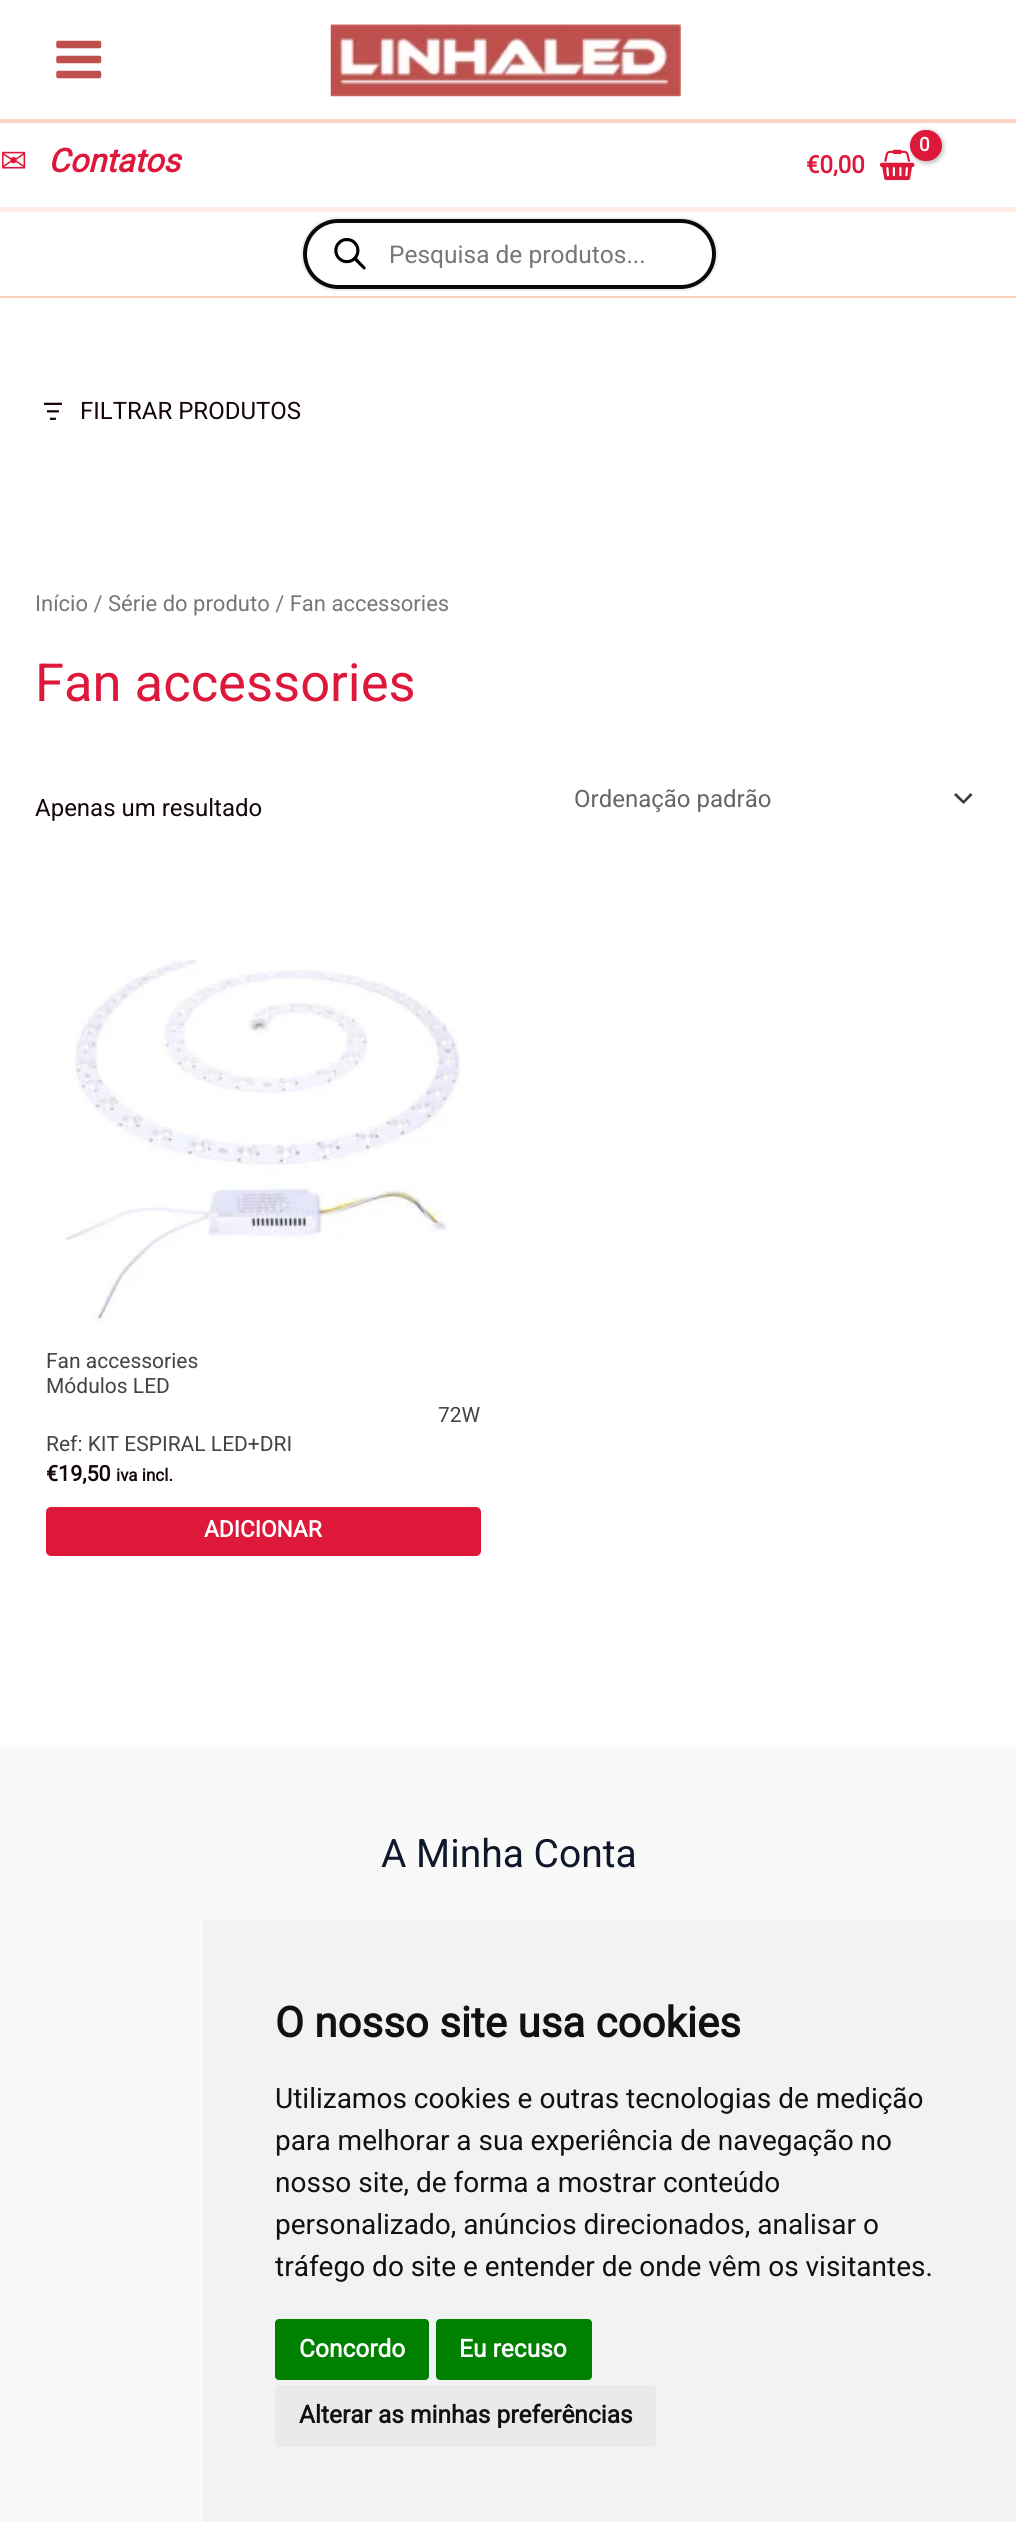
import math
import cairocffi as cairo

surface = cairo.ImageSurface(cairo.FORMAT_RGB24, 1016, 2522)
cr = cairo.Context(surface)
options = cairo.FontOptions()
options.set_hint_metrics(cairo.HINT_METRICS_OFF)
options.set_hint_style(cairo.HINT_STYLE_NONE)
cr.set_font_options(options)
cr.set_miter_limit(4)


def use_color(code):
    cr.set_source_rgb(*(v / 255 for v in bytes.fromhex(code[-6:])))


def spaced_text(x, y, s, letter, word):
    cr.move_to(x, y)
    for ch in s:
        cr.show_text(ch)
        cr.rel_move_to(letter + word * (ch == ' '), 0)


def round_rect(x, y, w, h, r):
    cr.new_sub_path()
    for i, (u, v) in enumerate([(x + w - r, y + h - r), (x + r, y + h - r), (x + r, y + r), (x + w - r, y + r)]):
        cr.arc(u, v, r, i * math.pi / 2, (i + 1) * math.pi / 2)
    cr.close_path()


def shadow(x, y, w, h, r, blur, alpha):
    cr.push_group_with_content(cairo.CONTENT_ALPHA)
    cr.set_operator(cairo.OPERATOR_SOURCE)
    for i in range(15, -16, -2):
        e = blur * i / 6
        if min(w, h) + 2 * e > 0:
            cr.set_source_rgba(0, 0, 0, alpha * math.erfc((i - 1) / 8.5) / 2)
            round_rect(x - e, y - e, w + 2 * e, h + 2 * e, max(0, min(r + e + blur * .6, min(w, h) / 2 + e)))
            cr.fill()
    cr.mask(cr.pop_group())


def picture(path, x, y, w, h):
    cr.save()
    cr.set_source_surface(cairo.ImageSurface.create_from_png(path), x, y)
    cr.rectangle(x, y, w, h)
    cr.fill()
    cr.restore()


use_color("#ffffff")
cr.paint()
use_color("#ffd1bf")
cr.rectangle(0, 119, 1016, 4)
cr.fill()
picture("img1.png", 56, 40, 46, 39)
picture("img2.png", 330, 24, 351, 73)
use_color("#ffede6")
cr.rectangle(0, 207, 1016, 5)
cr.fill()
cr.select_font_face("DejaVu Sans")
cr.set_font_size(32.5)
use_color("#dd183b")
cr.move_to(0, 172)
cr.show_text("✉")
cr.select_font_face("Roboto", cairo.FONT_SLANT_ITALIC, cairo.FONT_WEIGHT_BOLD)
cr.move_to(48, 172)
cr.show_text("Contatos")
picture("img3.png", 879, 149, 36, 32)
use_color("#000000")
shadow(912, 131, 31, 32, 15.5, 2.5, 0.3)
use_color("#dd183b")
round_rect(910, 130, 32, 31, 15.5)
cr.fill()
cr.select_font_face("Roboto", cairo.FONT_SLANT_NORMAL, cairo.FONT_WEIGHT_BOLD)
cr.set_font_size(19)
use_color("#ffffff")
spaced_text(919, 151, "0", -1, 0)
cr.set_font_size(24)
use_color("#dd183b")
cr.move_to(806, 173)
cr.show_text("€0,00")
use_color("#ffd1bf")
cr.rectangle(0, 296, 1016, 2)
cr.fill()
round_rect(302, 218, 415, 72, 36)
use_color("#eeeeee")
cr.stroke()
use_color("#ffffff")
round_rect(305, 221, 409, 66, 33)
cr.fill_preserve()
use_color("#0a0a0a")
cr.set_line_width(4)
cr.stroke()
picture("img4.png", 334, 238, 32, 32)
cr.select_font_face("Roboto")
cr.set_font_size(24.5)
use_color("#777777")
cr.move_to(389, 263)
cr.show_text("Pesquisa de produtos...")
picture("img5.png", 43, 402, 19, 18)
cr.set_font_size(24)
use_color("#140609")
cr.move_to(80, 419)
cr.show_text("FILTRAR PRODUTOS")
cr.set_font_size(22)
use_color("#777777")
cr.move_to(35, 611)
cr.show_text("Início / Série do produto / Fan accessories")
cr.set_font_size(52.5)
use_color("#dd183b")
cr.move_to(35, 701)
cr.show_text("Fan accessories")
cr.set_font_size(24)
use_color("#140609")
cr.move_to(35, 816)
cr.show_text("Apenas um resultado")
use_color("#3a3a3a")
cr.new_path()
cr.move_to(954, 795)
cr.line_to(963.5, 804)
cr.line_to(972.5, 795)
cr.line_to(970.5, 793)
cr.line_to(963.5, 800.5)
cr.line_to(956, 793)
cr.close_path()
cr.fill()
use_color("#666666")
cr.move_to(574, 807)
cr.show_text("Ordenação padrão")
picture("img6.png", 65, 959, 396, 366)
cr.set_font_size(21)
use_color("#444444")
cr.move_to(46, 1368)
cr.show_text("Fan accessories")
cr.move_to(46, 1393)
cr.show_text("Módulos LED")
cr.move_to(438, 1422)
cr.show_text("72W")
cr.move_to(46, 1451)
cr.show_text("Ref: KIT ESPIRAL LED+DRI")
cr.select_font_face("Roboto", cairo.FONT_SLANT_NORMAL, cairo.FONT_WEIGHT_BOLD)
cr.set_font_size(21.5)
use_color("#140609")
cr.move_to(46, 1481)
cr.show_text("€19,50")
cr.set_font_size(17)
cr.move_to(116, 1481)
cr.show_text("iva incl.")
use_color("#dd183b")
round_rect(46, 1507, 435, 49, 5)
cr.fill()
cr.set_font_size(22.75)
use_color("#ffffff")
cr.move_to(204, 1537)
cr.show_text("ADICIONAR")
use_color("#f9f9f9")
cr.rectangle(0, 1747, 1016, 775)
cr.fill()
cr.select_font_face("Roboto")
cr.set_font_size(39)
use_color("#0f172a")
cr.move_to(381, 1867)
cr.show_text("A Minha Conta")
use_color("#f2f2f2")
cr.rectangle(203, 1920, 813, 602)
cr.fill()
cr.select_font_face("Roboto", cairo.FONT_SLANT_NORMAL, cairo.FONT_WEIGHT_BOLD)
cr.set_font_size(42)
use_color("#111111")
cr.move_to(275, 2037)
cr.show_text("O nosso site usa cookies")
cr.select_font_face("Roboto")
cr.set_font_size(28)
cr.move_to(275, 2108)
cr.show_text("Utilizamos cookies e outras tecnologias de medição")
cr.move_to(275, 2150)
cr.show_text("para melhorar a sua experiência de navegação no")
cr.move_to(275, 2192)
cr.show_text("nosso site, de forma a mostrar conteúdo")
cr.move_to(275, 2234)
cr.show_text("personalizado, anúncios direcionados, analisar o")
cr.move_to(275, 2276)
cr.show_text("tráfego do site e entender de onde vêm os visitantes.")
use_color("#008000")
round_rect(275, 2319, 154, 61, 4)
cr.fill()
cr.select_font_face("Roboto", cairo.FONT_SLANT_NORMAL, cairo.FONT_WEIGHT_BOLD)
cr.set_font_size(24.5)
use_color("#ffffff")
cr.move_to(299, 2357)
cr.show_text("Concordo")
use_color("#008000")
round_rect(436, 2319, 156, 61, 4)
cr.fill()
use_color("#ffffff")
cr.move_to(459, 2357)
cr.show_text("Eu recuso")
use_color("#eaeaea")
round_rect(275, 2385, 381, 62, 4)
cr.fill()
use_color("#111111")
cr.move_to(299, 2423)
cr.show_text("Alterar as minhas preferências")
surface.write_to_png("result.png")
